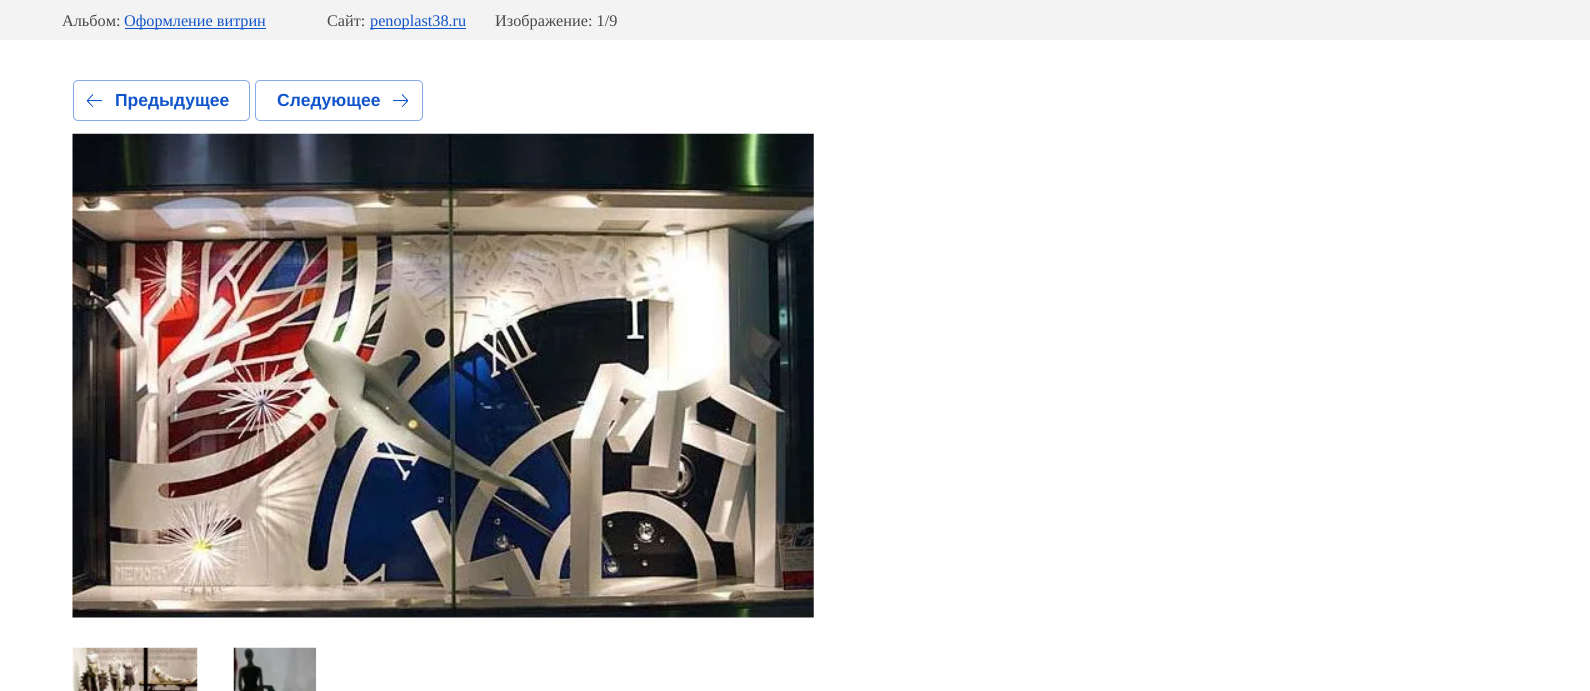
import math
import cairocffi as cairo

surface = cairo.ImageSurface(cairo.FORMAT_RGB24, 1590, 691)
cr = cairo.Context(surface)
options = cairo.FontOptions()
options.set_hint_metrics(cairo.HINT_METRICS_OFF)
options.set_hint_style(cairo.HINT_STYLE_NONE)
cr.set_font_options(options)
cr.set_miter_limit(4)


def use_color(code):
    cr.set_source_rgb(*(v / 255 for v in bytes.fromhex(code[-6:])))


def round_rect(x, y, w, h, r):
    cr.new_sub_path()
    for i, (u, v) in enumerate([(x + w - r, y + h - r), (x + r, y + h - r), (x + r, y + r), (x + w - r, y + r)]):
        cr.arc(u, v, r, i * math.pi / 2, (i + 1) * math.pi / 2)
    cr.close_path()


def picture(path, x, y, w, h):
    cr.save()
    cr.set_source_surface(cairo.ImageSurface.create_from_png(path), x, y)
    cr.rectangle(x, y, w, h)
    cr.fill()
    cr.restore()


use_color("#ffffff")
cr.paint()
use_color("#f3f3f3")
cr.rectangle(0, 0, 1590, 40)
cr.fill()
cr.select_font_face("Liberation Serif")
cr.set_font_size(16.25)
use_color("#484848")
cr.move_to(62, 26)
cr.show_text("Альбом:")
use_color("#1155cc")
cr.rectangle(125, 28, 141, 1)
cr.fill()
cr.move_to(124, 26)
cr.show_text("Оформление витрин")
use_color("#484848")
cr.move_to(327, 26)
cr.show_text("Сайт:")
use_color("#1155cc")
cr.rectangle(370, 28, 96, 1)
cr.fill()
cr.move_to(370, 26)
cr.show_text("penoplast38.ru")
use_color("#484848")
cr.move_to(495, 26)
cr.show_text("Изображение: 1/9")
round_rect(73.5, 80.5, 176, 40, 4.5)
use_color("#88aae6")
cr.set_line_width(1)
cr.stroke()
picture("img1.png", 86, 94, 17, 13)
cr.select_font_face("Liberation Sans", cairo.FONT_SLANT_NORMAL, cairo.FONT_WEIGHT_BOLD)
cr.set_font_size(17.5)
use_color("#1155cc")
cr.move_to(115, 106)
cr.show_text("Предыдущее")
round_rect(255.5, 80.5, 167, 40, 4.5)
use_color("#88aae6")
cr.stroke()
use_color("#1155cc")
cr.move_to(277, 106)
cr.show_text("Следующее")
picture("img2.png", 393, 94, 16, 13)
picture("img3.png", 72, 133, 742, 485)
picture("img4.png", 72, 647, 126, 44)
picture("img5.png", 233, 647, 84, 44)
surface.write_to_png("result.png")
